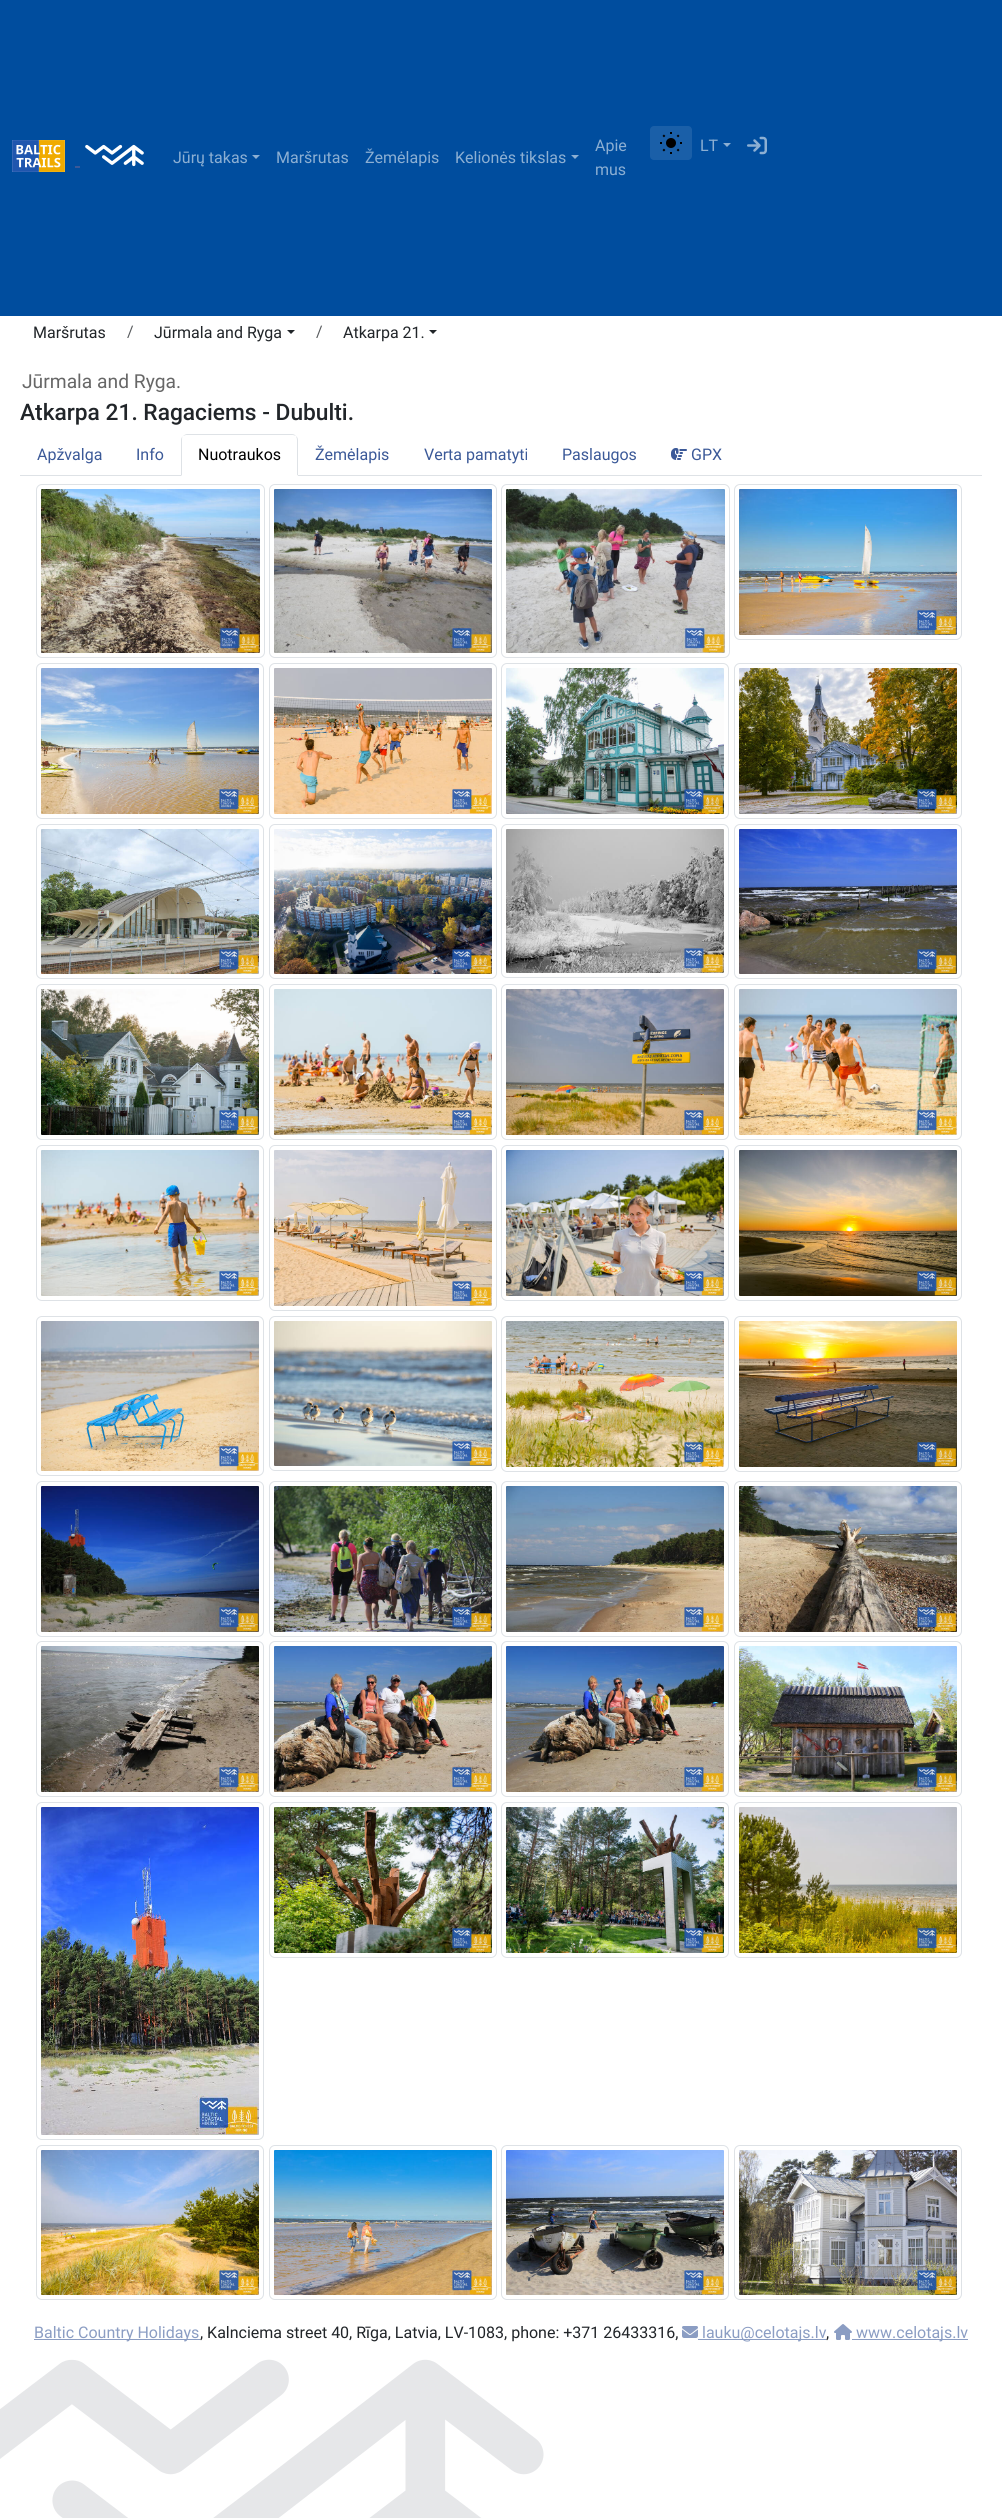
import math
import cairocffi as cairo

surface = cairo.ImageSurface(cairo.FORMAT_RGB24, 1002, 2518)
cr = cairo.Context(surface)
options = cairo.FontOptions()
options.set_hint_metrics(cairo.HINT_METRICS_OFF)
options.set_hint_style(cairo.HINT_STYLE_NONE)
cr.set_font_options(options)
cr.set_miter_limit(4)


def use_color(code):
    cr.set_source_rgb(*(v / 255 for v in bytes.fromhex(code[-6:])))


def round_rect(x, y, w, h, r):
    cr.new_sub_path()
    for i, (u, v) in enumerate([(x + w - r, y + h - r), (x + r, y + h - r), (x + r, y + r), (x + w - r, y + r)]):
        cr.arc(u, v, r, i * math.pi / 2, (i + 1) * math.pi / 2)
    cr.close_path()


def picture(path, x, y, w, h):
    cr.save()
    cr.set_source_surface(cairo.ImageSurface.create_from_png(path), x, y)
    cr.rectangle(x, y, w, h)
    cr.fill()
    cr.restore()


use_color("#ffffff")
cr.paint()
picture("img1.png", 0, 2359, 544, 159)
use_color("#004d9e")
cr.rectangle(0, 0, 1002, 316)
cr.fill()
picture("img2.png", 12, 140, 53, 32)
use_color("#3b5998")
cr.rectangle(75, 166, 5, 2)
cr.fill()
picture("img3.png", 85, 144, 59, 23)
cr.select_font_face("Roboto")
cr.set_font_size(16)
use_color("#8cafd3")
cr.move_to(173, 163)
cr.show_text("Jūrų takas")
cr.new_path()
cr.move_to(252, 155)
cr.line_to(260, 155)
cr.line_to(256, 159)
cr.close_path()
cr.fill()
cr.move_to(276, 163)
cr.show_text("Maršrutas")
cr.move_to(365, 163)
cr.show_text("Žemėlapis")
cr.move_to(455, 163)
cr.show_text("Kelionės tikslas")
cr.new_path()
cr.move_to(571, 155)
cr.line_to(579, 155)
cr.line_to(575, 159)
cr.close_path()
cr.fill()
cr.move_to(595, 151)
cr.show_text("Apie")
cr.move_to(595, 175)
cr.show_text("mus")
use_color("#1a5fa8")
round_rect(650, 126, 42, 34, 4)
cr.fill()
picture("img4.png", 660, 132, 22, 22)
use_color("#8cafd3")
cr.move_to(700, 151)
cr.show_text("LT")
cr.new_path()
cr.move_to(723, 143)
cr.line_to(731, 143)
cr.line_to(727, 147)
cr.close_path()
cr.fill()
picture("img5.png", 747, 136, 20, 19)
use_color("#212529")
cr.move_to(33, 338)
cr.show_text("Maršrutas")
use_color("#595c5f")
cr.move_to(127, 337)
cr.show_text("/")
use_color("#212529")
cr.move_to(154, 338)
cr.show_text("Jūrmala and Ryga")
cr.new_path()
cr.move_to(287, 330)
cr.line_to(295, 330)
cr.line_to(291, 334)
cr.close_path()
cr.fill()
use_color("#595c5f")
cr.move_to(316, 337)
cr.show_text("/")
use_color("#212529")
cr.move_to(343, 338)
cr.show_text("Atkarpa 21.")
cr.new_path()
cr.move_to(429, 330)
cr.line_to(437, 330)
cr.line_to(433, 334)
cr.close_path()
cr.fill()
cr.set_font_size(19.25)
use_color("#676767")
cr.move_to(22, 388)
cr.show_text("Jūrmala and Ryga.")
cr.select_font_face("Roboto Medium")
cr.set_font_size(22.75)
use_color("#212529")
cr.move_to(20, 420)
cr.show_text("Atkarpa 21. Ragaciems - Dubulti.")
use_color("#dee2e6")
cr.rectangle(20, 475, 962, 1)
cr.fill()
cr.select_font_face("Roboto")
cr.set_font_size(16)
use_color("#3b5998")
cr.move_to(37, 460)
cr.show_text("Apžvalga")
cr.move_to(136, 460)
cr.show_text("Info")
use_color("#ffffff")
cr.new_path()
cr.move_to(187, 434)
cr.line_to(292, 434)
cr.curve_to(295.5, 434, 298, 436.5, 298, 440)
cr.line_to(298, 476)
cr.line_to(181, 476)
cr.line_to(181, 440)
cr.curve_to(181, 436.5, 183.5, 434, 187, 434)
cr.close_path()
cr.fill()
use_color("#dee2e6")
cr.new_path()
cr.move_to(187, 434)
cr.curve_to(186, 434, 184, 435, 183, 436)
cr.line_to(186, 435)
cr.line_to(293, 435)
cr.line_to(296, 436)
cr.curve_to(295, 435, 294, 434, 292, 434)
cr.close_path()
cr.fill()
cr.new_path()
cr.move_to(298, 476)
cr.line_to(298, 440)
cr.curve_to(298, 438, 297, 437, 296, 436)
cr.curve_to(296, 437, 297, 438, 297, 440)
cr.line_to(297, 475)
cr.close_path()
cr.fill()
use_color("#ffffff")
cr.new_path()
cr.move_to(298, 476)
cr.line_to(297, 475)
cr.line_to(182, 475)
cr.line_to(181, 476)
cr.close_path()
cr.fill()
use_color("#dee2e6")
cr.new_path()
cr.move_to(181, 476)
cr.line_to(182, 475)
cr.line_to(182, 440)
cr.curve_to(182, 438, 182, 437, 183, 436)
cr.curve_to(182, 437, 181, 438, 181, 440)
cr.close_path()
cr.fill()
use_color("#000000")
cr.move_to(198, 460)
cr.show_text("Nuotraukos")
use_color("#3b5998")
cr.move_to(315, 460)
cr.show_text("Žemėlapis")
cr.move_to(424, 460)
cr.show_text("Verta pamatyti")
cr.move_to(562, 460)
cr.show_text("Paslaugos")
picture("img6.png", 671, 448, 16, 12)
cr.move_to(691, 460)
cr.show_text("GPX")
round_rect(36.5, 484.5, 228, 173, 5.5)
use_color("#dee2e6")
cr.set_line_width(1)
cr.stroke()
picture("img7.png", 41, 489, 219, 164)
round_rect(269.5, 484.5, 227, 173, 5.5)
cr.stroke()
picture("img8.png", 274, 489, 218, 164)
round_rect(501.5, 484.5, 228, 173, 5.5)
cr.stroke()
picture("img9.png", 506, 489, 219, 164)
round_rect(734.5, 484.5, 227, 155, 5.5)
cr.stroke()
picture("img10.png", 739, 489, 218, 146)
round_rect(36.5, 663.5, 227, 155, 5.5)
cr.stroke()
picture("img11.png", 41, 668, 218, 146)
round_rect(269.5, 663.5, 227, 155, 5.5)
cr.stroke()
picture("img12.png", 274, 668, 218, 146)
round_rect(501.5, 663.5, 227, 155, 5.5)
cr.stroke()
picture("img13.png", 506, 668, 218, 146)
round_rect(734.5, 663.5, 227, 155, 5.5)
cr.stroke()
picture("img14.png", 739, 668, 218, 146)
round_rect(36.5, 824.5, 227, 154, 5.5)
cr.stroke()
picture("img15.png", 41, 829, 218, 145)
round_rect(269.5, 824.5, 227, 154, 5.5)
cr.stroke()
picture("img16.png", 274, 829, 218, 145)
round_rect(501.5, 824.5, 227, 153, 5.5)
cr.stroke()
picture("img17.png", 506, 829, 218, 144)
round_rect(734.5, 824.5, 227, 154, 5.5)
cr.stroke()
picture("img18.png", 739, 829, 218, 145)
round_rect(36.5, 984.5, 227, 155, 5.5)
cr.stroke()
picture("img19.png", 41, 989, 218, 146)
round_rect(269.5, 984.5, 227, 155, 5.5)
cr.stroke()
picture("img20.png", 274, 989, 218, 146)
round_rect(501.5, 984.5, 227, 155, 5.5)
cr.stroke()
picture("img21.png", 506, 989, 218, 146)
round_rect(734.5, 984.5, 227, 155, 5.5)
cr.stroke()
picture("img22.png", 739, 989, 218, 146)
round_rect(36.5, 1145.5, 227, 155, 5.5)
cr.stroke()
picture("img23.png", 41, 1150, 218, 146)
round_rect(269.5, 1145.5, 227, 165, 5.5)
cr.stroke()
picture("img24.png", 274, 1150, 218, 156)
round_rect(501.5, 1145.5, 227, 155, 5.5)
cr.stroke()
picture("img25.png", 506, 1150, 218, 146)
round_rect(734.5, 1145.5, 227, 155, 5.5)
cr.stroke()
picture("img26.png", 739, 1150, 218, 146)
round_rect(36.5, 1316.5, 227, 159, 5.5)
cr.stroke()
picture("img27.png", 41, 1321, 218, 150)
round_rect(269.5, 1316.5, 227, 154, 5.5)
cr.stroke()
picture("img28.png", 274, 1321, 218, 145)
round_rect(501.5, 1316.5, 227, 155, 5.5)
cr.stroke()
picture("img29.png", 506, 1321, 218, 146)
round_rect(734.5, 1316.5, 227, 155, 5.5)
cr.stroke()
picture("img30.png", 739, 1321, 218, 146)
round_rect(36.5, 1481.5, 227, 155, 5.5)
cr.stroke()
picture("img31.png", 41, 1486, 218, 146)
round_rect(269.5, 1481.5, 227, 155, 5.5)
cr.stroke()
picture("img32.png", 274, 1486, 218, 146)
round_rect(501.5, 1481.5, 227, 155, 5.5)
cr.stroke()
picture("img33.png", 506, 1486, 218, 146)
round_rect(734.5, 1481.5, 227, 155, 5.5)
cr.stroke()
picture("img34.png", 739, 1486, 218, 146)
round_rect(36.5, 1641.5, 227, 155, 5.5)
cr.stroke()
picture("img35.png", 41, 1646, 218, 146)
round_rect(269.5, 1641.5, 227, 155, 5.5)
cr.stroke()
picture("img36.png", 274, 1646, 218, 146)
round_rect(501.5, 1641.5, 227, 155, 5.5)
cr.stroke()
picture("img37.png", 506, 1646, 218, 146)
round_rect(734.5, 1641.5, 227, 155, 5.5)
cr.stroke()
picture("img38.png", 739, 1646, 218, 146)
round_rect(36.5, 1802.5, 227, 337, 5.5)
cr.stroke()
picture("img39.png", 41, 1807, 218, 328)
round_rect(269.5, 1802.5, 227, 155, 5.5)
cr.stroke()
picture("img40.png", 274, 1807, 218, 146)
round_rect(501.5, 1802.5, 227, 155, 5.5)
cr.stroke()
picture("img41.png", 506, 1807, 218, 146)
round_rect(734.5, 1802.5, 227, 155, 5.5)
cr.stroke()
picture("img42.png", 739, 1807, 218, 146)
round_rect(36.5, 2145.5, 227, 154, 5.5)
cr.stroke()
picture("img43.png", 41, 2150, 218, 145)
round_rect(269.5, 2145.5, 227, 154, 5.5)
cr.stroke()
picture("img44.png", 274, 2150, 218, 145)
round_rect(501.5, 2145.5, 227, 154, 5.5)
cr.stroke()
picture("img45.png", 506, 2150, 218, 145)
round_rect(734.5, 2145.5, 227, 154, 5.5)
cr.stroke()
picture("img46.png", 739, 2150, 218, 145)
use_color("#8b9dc3")
cr.rectangle(34, 2339, 166, 1)
cr.fill()
cr.move_to(34, 2338)
cr.show_text("Baltic Country Holidays")
use_color("#212529")
cr.move_to(200, 2338)
cr.show_text(", Kalnciema street 40, Rīga, Latvia, LV-1083, phone: +371 26433316,")
picture("img47.png", 682, 2326, 16, 12)
use_color("#8b9dc3")
cr.rectangle(698, 2339, 128, 1)
cr.fill()
cr.move_to(702, 2338)
cr.show_text("lauku@celotajs.lv")
use_color("#212529")
cr.move_to(826, 2338)
cr.show_text(",")
picture("img48.png", 834, 2324, 18, 16)
use_color("#8b9dc3")
cr.rectangle(852, 2339, 116, 1)
cr.fill()
cr.move_to(856, 2338)
cr.show_text("www.celotajs.lv")
surface.write_to_png("result.png")
